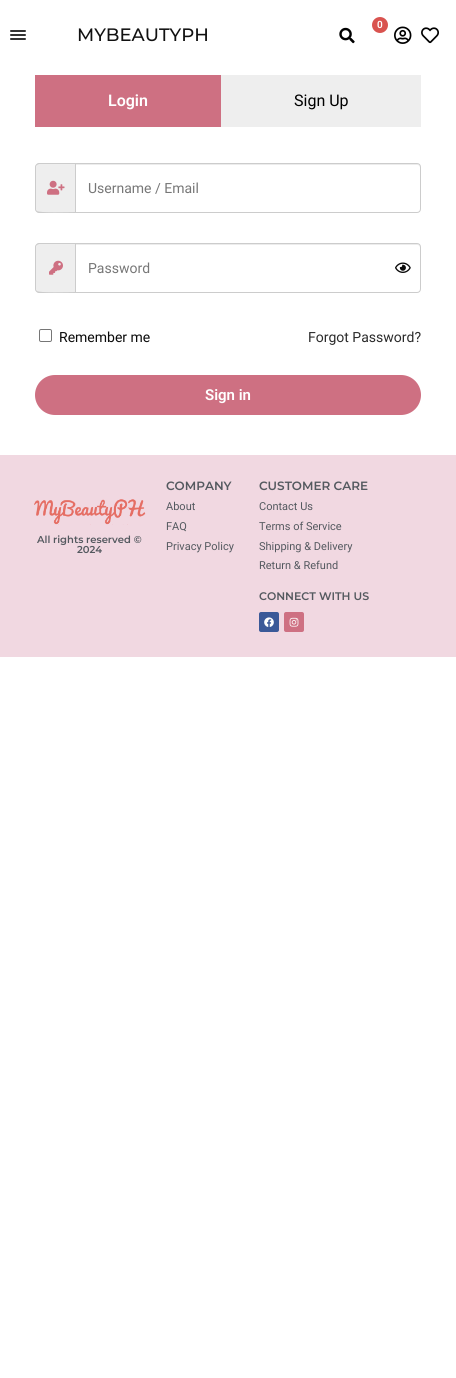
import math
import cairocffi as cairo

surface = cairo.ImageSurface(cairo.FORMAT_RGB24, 456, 1378)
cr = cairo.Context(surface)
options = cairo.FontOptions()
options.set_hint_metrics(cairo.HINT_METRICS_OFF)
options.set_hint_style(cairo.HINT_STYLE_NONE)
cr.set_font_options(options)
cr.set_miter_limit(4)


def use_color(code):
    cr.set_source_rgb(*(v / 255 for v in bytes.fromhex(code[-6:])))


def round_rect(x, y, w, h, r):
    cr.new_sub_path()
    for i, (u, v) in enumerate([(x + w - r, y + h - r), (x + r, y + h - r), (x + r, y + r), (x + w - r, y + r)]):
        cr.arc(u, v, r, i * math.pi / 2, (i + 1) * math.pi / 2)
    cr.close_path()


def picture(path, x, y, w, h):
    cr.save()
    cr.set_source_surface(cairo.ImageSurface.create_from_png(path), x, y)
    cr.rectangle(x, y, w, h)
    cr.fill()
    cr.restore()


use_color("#ffffff")
cr.paint()
use_color("#d9534f")
cr.arc(380, 25, 8, 0, 2 * math.pi)
cr.fill()
cr.select_font_face("Roboto SemiBold")
cr.set_font_size(10)
use_color("#ffffff")
cr.move_to(377, 28)
cr.show_text("0")
picture("img1.png", 339, 27, 16, 17)
picture("img2.png", 394, 26, 18, 18)
picture("img3.png", 421, 27, 18, 17)
use_color("#333333")
round_rect(10, 30, 16, 2, 1)
cr.fill()
round_rect(10, 34, 16, 2, 1)
cr.fill()
round_rect(10, 38, 16, 2, 1)
cr.fill()
cr.select_font_face("Montserrat Medium")
cr.set_font_size(18)
use_color("#111111")
cr.move_to(77, 41)
cr.show_text("MYBEAUTYPH")
use_color("#ce7082")
cr.rectangle(35, 75, 186, 52)
cr.fill()
cr.select_font_face("Roboto SemiBold")
cr.set_font_size(16)
use_color("#ffffff")
cr.move_to(108, 106)
cr.show_text("Login")
use_color("#eeeeee")
cr.rectangle(221, 75, 200, 52)
cr.fill()
cr.select_font_face("Roboto")
use_color("#000000")
cr.move_to(294, 106)
cr.show_text("Sign Up")
use_color("#eeeeee")
cr.new_path()
cr.move_to(39, 163)
cr.line_to(75, 163)
cr.line_to(75, 213)
cr.line_to(39, 213)
cr.curve_to(37, 213, 35, 211, 35, 209)
cr.line_to(35, 167)
cr.curve_to(35, 165, 37, 163, 39, 163)
cr.close_path()
cr.fill()
use_color("#cccccc")
cr.set_fill_rule(cairo.FILL_RULE_EVEN_ODD)
cr.new_path()
cr.move_to(39, 163)
cr.line_to(75, 163)
cr.line_to(75, 213)
cr.line_to(39, 213)
cr.curve_to(37, 213, 35, 211, 35, 209)
cr.line_to(35, 167)
cr.curve_to(35, 165, 37, 163, 39, 163)
cr.close_path()
cr.move_to(39, 164)
cr.line_to(75, 164)
cr.line_to(75, 212)
cr.curve_to(70, 212, 39, 213, 37, 211)
cr.line_to(36, 210)
cr.line_to(36, 166)
cr.line_to(37, 165)
cr.close_path()
cr.fill()
picture("img4.png", 47, 180, 18, 15)
use_color("#ececec")
cr.set_fill_rule(cairo.FILL_RULE_WINDING)
cr.new_path()
cr.move_to(76, 165)
cr.line_to(417, 165)
cr.curve_to(419, 165, 420, 166, 420, 168)
cr.line_to(420, 167)
cr.curve_to(420, 165, 419, 164, 417, 164)
cr.line_to(76, 164)
cr.close_path()
cr.fill()
cr.new_path()
cr.move_to(75.5, 163.5)
cr.line_to(417, 163.5)
cr.curve_to(419, 163.5, 420.5, 165, 420.5, 167)
cr.line_to(420.5, 209)
cr.curve_to(420.5, 211, 419, 212.5, 417, 212.5)
cr.line_to(75.5, 212.5)
cr.close_path()
use_color("#cccccc")
cr.set_line_width(1)
cr.stroke()
cr.set_font_size(14)
use_color("#777777")
cr.move_to(88, 193)
cr.show_text("Username / Email")
use_color("#eeeeee")
cr.new_path()
cr.move_to(39, 243)
cr.line_to(75, 243)
cr.line_to(75, 293)
cr.line_to(39, 293)
cr.curve_to(37, 293, 35, 291, 35, 289)
cr.line_to(35, 247)
cr.curve_to(35, 245, 37, 243, 39, 243)
cr.close_path()
cr.fill()
use_color("#cccccc")
cr.set_fill_rule(cairo.FILL_RULE_EVEN_ODD)
cr.new_path()
cr.move_to(39, 243)
cr.line_to(75, 243)
cr.line_to(75, 293)
cr.line_to(39, 293)
cr.curve_to(37, 293, 35, 291, 35, 289)
cr.line_to(35, 247)
cr.curve_to(35, 245, 37, 243, 39, 243)
cr.close_path()
cr.move_to(39, 244)
cr.line_to(75, 244)
cr.line_to(75, 292)
cr.curve_to(70, 292, 39, 293, 37, 291)
cr.line_to(36, 290)
cr.line_to(36, 246)
cr.line_to(37, 245)
cr.close_path()
cr.fill()
picture("img5.png", 49, 260, 14, 15)
use_color("#ececec")
cr.set_fill_rule(cairo.FILL_RULE_WINDING)
cr.new_path()
cr.move_to(76, 245)
cr.line_to(417, 245)
cr.curve_to(419, 245, 420, 246, 420, 248)
cr.line_to(420, 247)
cr.curve_to(420, 245, 419, 244, 417, 244)
cr.line_to(76, 244)
cr.close_path()
cr.fill()
cr.new_path()
cr.move_to(75.5, 243.5)
cr.line_to(417, 243.5)
cr.curve_to(419, 243.5, 420.5, 245, 420.5, 247)
cr.line_to(420.5, 289)
cr.curve_to(420.5, 291, 419, 292.5, 417, 292.5)
cr.line_to(75.5, 292.5)
cr.close_path()
use_color("#cccccc")
cr.stroke()
use_color("#777777")
cr.move_to(88, 273)
cr.show_text("Password")
picture("img6.png", 395, 262, 16, 11)
round_rect(39.5, 329.5, 12, 12, 1.5)
use_color("#767676")
cr.stroke()
use_color("#0a0a0a")
cr.move_to(59, 342)
cr.show_text("Remember me")
use_color("#2b2b2b")
cr.move_to(308, 342)
cr.show_text("Forgot Password?")
use_color("#ce7082")
round_rect(35, 375, 386, 40, 20)
cr.fill()
cr.select_font_face("Roboto SemiBold")
cr.set_font_size(15)
use_color("#ffffff")
cr.move_to(205, 400)
cr.show_text("Sign in")
use_color("#f1d8e1")
cr.rectangle(0, 455, 456, 202)
cr.fill()
picture("img7.png", 34, 499, 112, 26)
cr.select_font_face("Montserrat SemiBold")
cr.set_font_size(10)
use_color("#54595f")
cr.move_to(37, 543)
cr.show_text("All rights reserved ©")
cr.move_to(77, 553)
cr.show_text("2024")
cr.set_font_size(12)
cr.move_to(166, 490)
cr.show_text("COMPANY")
cr.select_font_face("Roboto")
cr.set_font_size(11)
cr.move_to(166, 510)
cr.show_text("About")
cr.move_to(166, 530)
cr.show_text("FAQ")
cr.move_to(166, 550)
cr.show_text("Privacy Policy")
cr.select_font_face("Montserrat SemiBold")
cr.set_font_size(12)
cr.move_to(259, 490)
cr.show_text("CUSTOMER CARE")
cr.select_font_face("Roboto")
cr.set_font_size(11)
cr.move_to(259, 510)
cr.show_text("Contact Us")
cr.move_to(259, 530)
cr.show_text("Terms of Service")
cr.move_to(259, 550)
cr.show_text("Shipping & Delivery")
cr.move_to(259, 569)
cr.show_text("Return & Refund")
cr.select_font_face("Montserrat SemiBold")
cr.move_to(259, 600)
cr.show_text("CONNECT WITH US")
use_color("#3b5998")
round_rect(259, 612, 20, 20, 2)
cr.fill()
picture("img8.png", 264, 617, 10, 10)
use_color("#ce7082")
round_rect(284, 612, 20, 20, 2)
cr.fill()
picture("img9.png", 289, 617, 10, 10)
surface.write_to_png("result.png")
